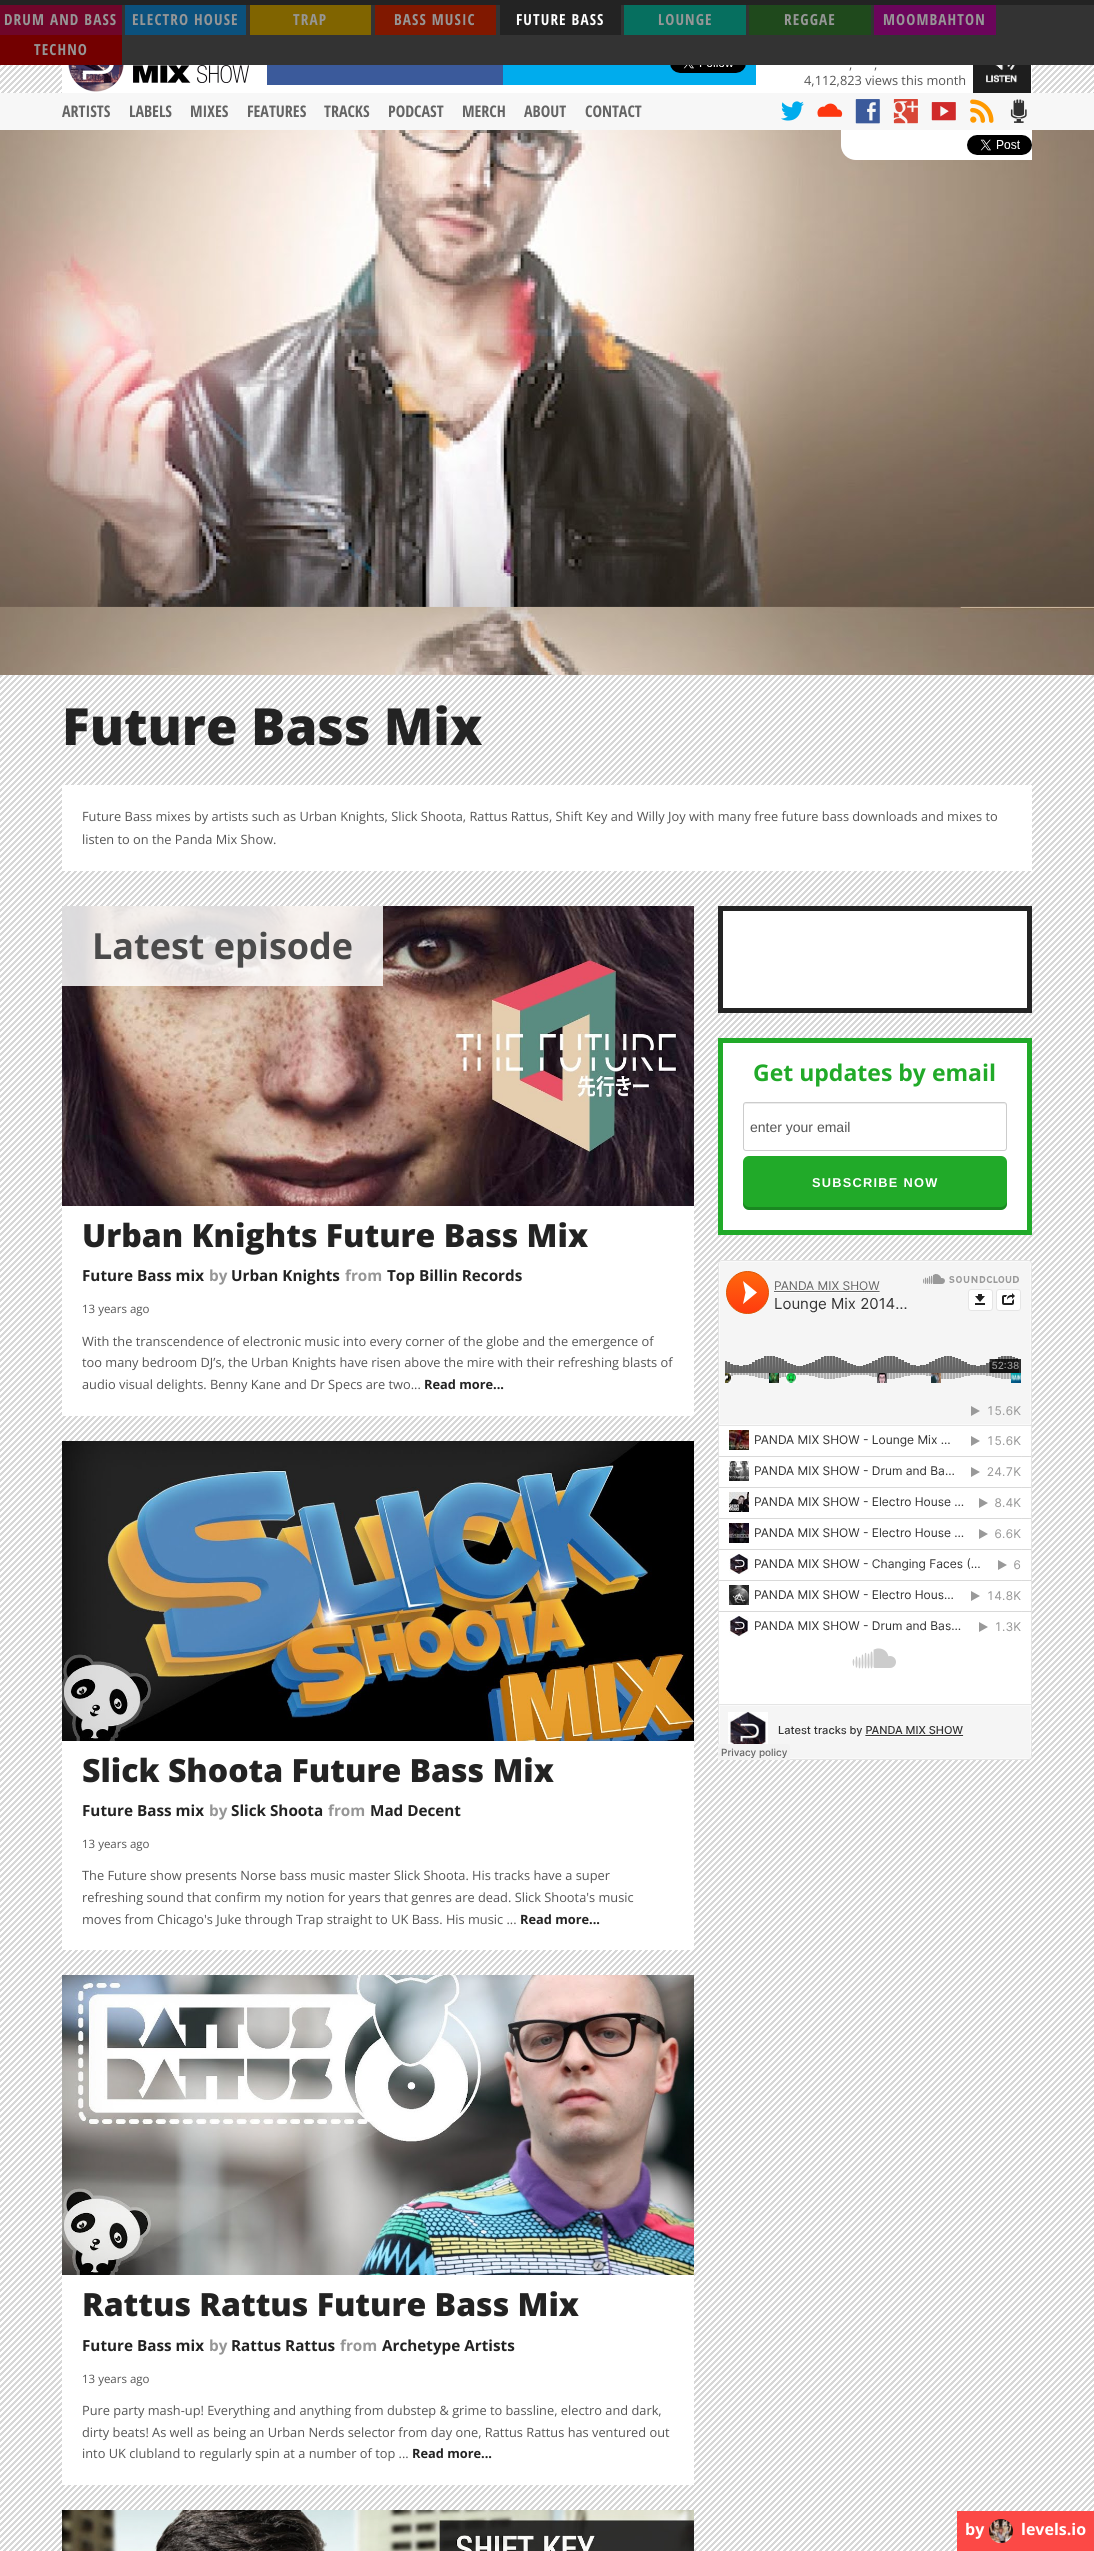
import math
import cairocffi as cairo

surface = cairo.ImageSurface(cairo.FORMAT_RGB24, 1094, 2551)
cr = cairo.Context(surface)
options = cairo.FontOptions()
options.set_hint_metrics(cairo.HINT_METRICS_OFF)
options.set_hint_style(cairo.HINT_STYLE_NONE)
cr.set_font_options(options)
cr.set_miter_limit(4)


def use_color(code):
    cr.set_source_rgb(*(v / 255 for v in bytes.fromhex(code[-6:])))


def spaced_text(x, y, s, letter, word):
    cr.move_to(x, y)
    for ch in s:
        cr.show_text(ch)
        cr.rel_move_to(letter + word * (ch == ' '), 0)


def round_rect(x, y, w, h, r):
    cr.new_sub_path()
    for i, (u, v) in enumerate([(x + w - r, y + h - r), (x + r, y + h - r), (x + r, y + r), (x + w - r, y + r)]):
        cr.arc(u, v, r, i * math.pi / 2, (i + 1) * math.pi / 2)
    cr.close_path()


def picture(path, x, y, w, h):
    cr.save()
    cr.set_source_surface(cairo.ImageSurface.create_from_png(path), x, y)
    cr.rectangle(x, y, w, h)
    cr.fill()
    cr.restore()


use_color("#ffffff")
cr.paint()
picture("img1.png", 0, 65, 1094, 2486)
use_color("#232323")
cr.rectangle(0, 0, 1094, 5)
cr.fill()
use_color("#333333")
cr.rectangle(122, 5, 972, 60)
cr.fill()
use_color("#6f062a")
cr.rectangle(0, 5, 122, 30)
cr.fill()
cr.select_font_face("Open Sans Condensed", cairo.FONT_SLANT_NORMAL, cairo.FONT_WEIGHT_BOLD)
cr.set_font_size(15.25)
use_color("#969696")
spaced_text(4, 25, "DRUM AND BASS", 1.1, 0)
use_color("#0b517d")
cr.rectangle(125, 5, 121, 30)
cr.fill()
use_color("#969696")
spaced_text(132, 25, "ELECTRO HOUSE", 1.1, 0)
use_color("#806400")
cr.rectangle(250, 5, 121, 30)
cr.fill()
use_color("#969696")
spaced_text(293, 25, "TRAP", 1.1, 0)
use_color("#801800")
cr.rectangle(375, 5, 121, 30)
cr.fill()
use_color("#969696")
spaced_text(394, 25, "BASS MUSIC", 1.1, 0)
use_color("#232323")
cr.rectangle(500, 5, 121, 30)
cr.fill()
use_color("#ffffff")
spaced_text(516, 25, "FUTURE BASS", 1.1, 0)
use_color("#066f5f")
cr.rectangle(624, 5, 122, 30)
cr.fill()
use_color("#969696")
spaced_text(658, 25, "LOUNGE", 1.1, 0)
use_color("#1f491c")
cr.rectangle(749, 5, 122, 30)
cr.fill()
use_color("#969696")
spaced_text(784, 25, "REGGAE", 1.1, 0)
use_color("#6b055b")
cr.rectangle(874, 5, 122, 30)
cr.fill()
use_color("#969696")
spaced_text(883, 25, "MOOMBAHTON", 1.1, 0)
use_color("#730000")
cr.rectangle(0, 35, 122, 30)
cr.fill()
use_color("#969696")
spaced_text(34, 55, "TECHNO", 1.1, 0)
use_color("#ffffff")
cr.rectangle(62, 65, 970, 28)
cr.fill()
picture("img2.png", 68, 65, 181, 27)
use_color("#3b5a9b")
cr.rectangle(267, 65, 236, 20)
cr.fill()
use_color("#00aced")
cr.rectangle(503, 65, 253, 20)
cr.fill()
picture("img3.png", 670, 65, 76, 8)
cr.select_font_face("Open Sans")
cr.set_font_size(12.8)
use_color("#555555")
cr.move_to(849, 69)
cr.show_text(",")
cr.move_to(874, 69)
cr.show_text(",")
cr.move_to(804, 85)
cr.show_text("4,112,823 views this month")
picture("img4.png", 973, 65, 58, 28)
use_color("#f7f7f7")
cr.rectangle(0, 93, 1094, 37)
cr.fill()
cr.select_font_face("Open Sans Condensed", cairo.FONT_SLANT_NORMAL, cairo.FONT_WEIGHT_BOLD)
cr.set_font_size(16)
use_color("#646464")
cr.move_to(62, 117)
cr.show_text("ARTISTS")
cr.move_to(129, 117)
cr.show_text("LABELS")
cr.move_to(190, 117)
cr.show_text("MIXES")
cr.move_to(247, 117)
cr.show_text("FEATURES")
cr.move_to(324, 117)
cr.show_text("TRACKS")
cr.move_to(388, 117)
cr.show_text("PODCAST")
cr.move_to(462, 117)
cr.show_text("MERCH")
cr.move_to(524, 117)
cr.show_text("ABOUT")
cr.move_to(585, 117)
cr.show_text("CONTACT")
picture("img5.png", 781, 101, 23, 20)
picture("img6.png", 817, 103, 26, 14)
picture("img7.png", 855, 99, 25, 25)
picture("img8.png", 893, 99, 25, 25)
picture("img9.png", 931, 102, 25, 19)
picture("img10.png", 970, 99, 24, 24)
picture("img11.png", 1010, 99, 17, 24)
picture("img12.png", 0, 130, 1094, 545)
use_color("#ffffff")
cr.new_path()
cr.move_to(841, 130)
cr.line_to(1032, 130)
cr.line_to(1032, 160)
cr.line_to(856, 160)
cr.curve_to(847.5, 160, 841, 153.5, 841, 145)
cr.close_path()
cr.fill()
picture("img13.png", 967, 135, 65, 20)
cr.select_font_face("Open Sans ExtraBold")
cr.set_font_size(51.25)
use_color("#232323")
cr.move_to(62, 745)
cr.show_text("Future Bass Mix")
use_color("#ffffff")
cr.rectangle(62, 785, 970, 86)
cr.fill()
cr.select_font_face("Open Sans")
cr.set_font_size(12.8)
use_color("#555555")
cr.move_to(82, 821)
cr.show_text("Future Bass mixes by artists such as Urban Knights, Slick Shoota, Rattus Rattus, Shift Key and Willy Joy with many free future bass downloads and mixes to")
cr.move_to(82, 844)
cr.show_text("listen to on the Panda Mix Show.")
use_color("#ffffff")
cr.rectangle(62, 1206, 632, 210)
cr.fill()
picture("img14.png", 62, 906, 632, 300)
cr.set_source_rgba(1, 1, 1, 0.85)
cr.rectangle(62, 906, 321, 80)
cr.fill()
cr.select_font_face("Open Sans", cairo.FONT_SLANT_NORMAL, cairo.FONT_WEIGHT_BOLD)
cr.set_font_size(36)
use_color("#4b4b4b")
cr.move_to(92, 959)
cr.show_text("Latest episode")
cr.select_font_face("Open Sans ExtraBold")
cr.set_font_size(32)
use_color("#232323")
cr.move_to(82, 1247)
cr.show_text("Urban Knights Future Bass Mix")
cr.select_font_face("Open Sans", cairo.FONT_SLANT_NORMAL, cairo.FONT_WEIGHT_BOLD)
cr.set_font_size(15.25)
cr.move_to(82, 1281)
cr.show_text("Future Bass mix")
use_color("#969696")
cr.move_to(209, 1281)
cr.show_text("by")
use_color("#232323")
cr.move_to(231, 1281)
cr.show_text("Urban Knights")
use_color("#969696")
cr.move_to(345, 1281)
cr.show_text("from")
use_color("#232323")
cr.move_to(387, 1281)
cr.show_text("Top Billin Records")
cr.select_font_face("Open Sans")
cr.set_font_size(11.5)
use_color("#555555")
cr.move_to(82, 1313)
cr.show_text("13 years ago")
cr.set_font_size(12.8)
cr.move_to(82, 1346)
cr.show_text("With the transcendence of electronic music into every corner of the globe and the emergence of")
cr.move_to(82, 1367)
cr.show_text("too many bedroom DJ’s, the Urban Knights have risen above the mire with their refreshing blasts of")
cr.move_to(82, 1389)
cr.show_text("audio visual delights. Benny Kane and Dr Specs are two...")
cr.select_font_face("Open Sans", cairo.FONT_SLANT_NORMAL, cairo.FONT_WEIGHT_BOLD)
use_color("#232323")
cr.move_to(424, 1389)
cr.show_text("Read more...")
use_color("#ffffff")
cr.rectangle(62, 1741, 632, 209)
cr.fill()
picture("img15.png", 62, 1441, 632, 300)
cr.select_font_face("Open Sans ExtraBold")
cr.set_font_size(32)
use_color("#232323")
cr.move_to(82, 1782)
cr.show_text("Slick Shoota Future Bass Mix")
cr.select_font_face("Open Sans", cairo.FONT_SLANT_NORMAL, cairo.FONT_WEIGHT_BOLD)
cr.set_font_size(15.25)
cr.move_to(82, 1816)
cr.show_text("Future Bass mix")
use_color("#969696")
cr.move_to(209, 1816)
cr.show_text("by")
use_color("#232323")
cr.move_to(231, 1816)
cr.show_text("Slick Shoota")
use_color("#969696")
cr.move_to(328, 1816)
cr.show_text("from")
use_color("#232323")
cr.move_to(370, 1816)
cr.show_text("Mad Decent")
cr.select_font_face("Open Sans")
cr.set_font_size(11.5)
use_color("#555555")
cr.move_to(82, 1848)
cr.show_text("13 years ago")
cr.set_font_size(12.8)
cr.move_to(82, 1880)
cr.show_text("The Future show presents Norse bass music master Slick Shoota. His tracks have a super")
cr.move_to(82, 1902)
cr.show_text("refreshing sound that confirm my notion for years that genres are dead. Slick Shoota's music")
cr.move_to(82, 1924)
cr.show_text("moves from Chicago's Juke through Trap straight to UK Bass. His music ...")
cr.select_font_face("Open Sans", cairo.FONT_SLANT_NORMAL, cairo.FONT_WEIGHT_BOLD)
use_color("#232323")
cr.move_to(520, 1924)
cr.show_text("Read more...")
use_color("#ffffff")
cr.rectangle(62, 2275, 632, 210)
cr.fill()
picture("img16.png", 62, 1975, 632, 300)
cr.select_font_face("Open Sans ExtraBold")
cr.set_font_size(32)
use_color("#232323")
cr.move_to(82, 2316)
cr.show_text("Rattus Rattus Future Bass Mix")
cr.select_font_face("Open Sans", cairo.FONT_SLANT_NORMAL, cairo.FONT_WEIGHT_BOLD)
cr.set_font_size(15.25)
cr.move_to(82, 2351)
cr.show_text("Future Bass mix")
use_color("#969696")
cr.move_to(209, 2351)
cr.show_text("by")
use_color("#232323")
cr.move_to(231, 2351)
cr.show_text("Rattus Rattus")
use_color("#969696")
cr.move_to(340, 2351)
cr.show_text("from")
use_color("#232323")
cr.move_to(382, 2351)
cr.show_text("Archetype Artists")
cr.select_font_face("Open Sans")
cr.set_font_size(11.5)
use_color("#555555")
cr.move_to(82, 2383)
cr.show_text("13 years ago")
cr.set_font_size(12.8)
cr.move_to(82, 2415)
cr.show_text("Pure party mash-up! Everything and anything from dubstep & grime to bassline, electro and dark,")
cr.move_to(82, 2437)
cr.show_text("dirty beats! As well as being an Urban Nerds selector from day one, Rattus Rattus has ventured out")
cr.move_to(82, 2458)
cr.show_text("into UK clubland to regularly spin at a number of top ...")
cr.select_font_face("Open Sans", cairo.FONT_SLANT_NORMAL, cairo.FONT_WEIGHT_BOLD)
use_color("#232323")
cr.move_to(412, 2458)
cr.show_text("Read more...")
picture("img17.png", 62, 2510, 632, 41)
use_color("#ffffff")
cr.rectangle(720.5, 908.5, 309, 102)
cr.fill_preserve()
use_color("#232323")
cr.set_line_width(5)
cr.stroke()
use_color("#ffffff")
cr.rectangle(720.5, 1040.5, 309, 192)
cr.fill_preserve()
use_color("#21aa29")
cr.stroke()
cr.set_font_size(23)
cr.move_to(753, 1081)
cr.show_text("Get updates by email")
use_color("#ececec")
cr.new_path()
cr.move_to(746, 1104)
cr.line_to(1004, 1104)
cr.curve_to(1005, 1104, 1006, 1105, 1006, 1106)
cr.line_to(1006, 1105)
cr.curve_to(1006, 1104, 1005, 1103, 1004, 1103)
cr.line_to(746, 1103)
cr.curve_to(745, 1103, 744, 1104, 744, 1105)
cr.line_to(744, 1106)
cr.curve_to(744, 1105, 745, 1104, 746, 1104)
cr.close_path()
cr.fill()
round_rect(743.5, 1102.5, 263, 48, 2.5)
use_color("#cccccc")
cr.set_line_width(1)
cr.stroke()
cr.select_font_face("Liberation Sans")
cr.set_font_size(14)
use_color("#555555")
cr.move_to(750, 1132)
cr.show_text("enter your email")
use_color("#21aa29")
round_rect(743, 1156, 264, 54, 6)
cr.fill()
cr.set_source_rgba(0, 0, 0, 0.2)
cr.new_path()
cr.move_to(743, 1201)
cr.line_to(743, 1204)
cr.curve_to(743, 1207, 746, 1210, 749, 1210)
cr.line_to(1001, 1210)
cr.curve_to(1004, 1210, 1007, 1207, 1007, 1204)
cr.line_to(1007, 1201)
cr.curve_to(1007, 1204, 1004, 1207, 1001, 1207)
cr.line_to(749, 1207)
cr.curve_to(746, 1207, 743, 1204, 743, 1201)
cr.close_path()
cr.fill()
cr.select_font_face("Liberation Sans", cairo.FONT_SLANT_NORMAL, cairo.FONT_WEIGHT_BOLD)
cr.set_font_size(12.8)
use_color("#ffffff")
spaced_text(812, 1187, "SUBSCRIBE NOW", 1.25, 0)
picture("img18.png", 718, 1260, 314, 500)
use_color("#fc4946")
cr.rectangle(957, 2511, 137, 40)
cr.fill()
cr.select_font_face("Open Sans", cairo.FONT_SLANT_NORMAL, cairo.FONT_WEIGHT_BOLD)
cr.set_font_size(16)
use_color("#ffffff")
cr.move_to(965, 2535)
cr.show_text("by")
picture("img19.png", 989, 2519, 24, 24)
cr.move_to(1021, 2535)
cr.show_text("levels.io")
surface.write_to_png("result.png")
